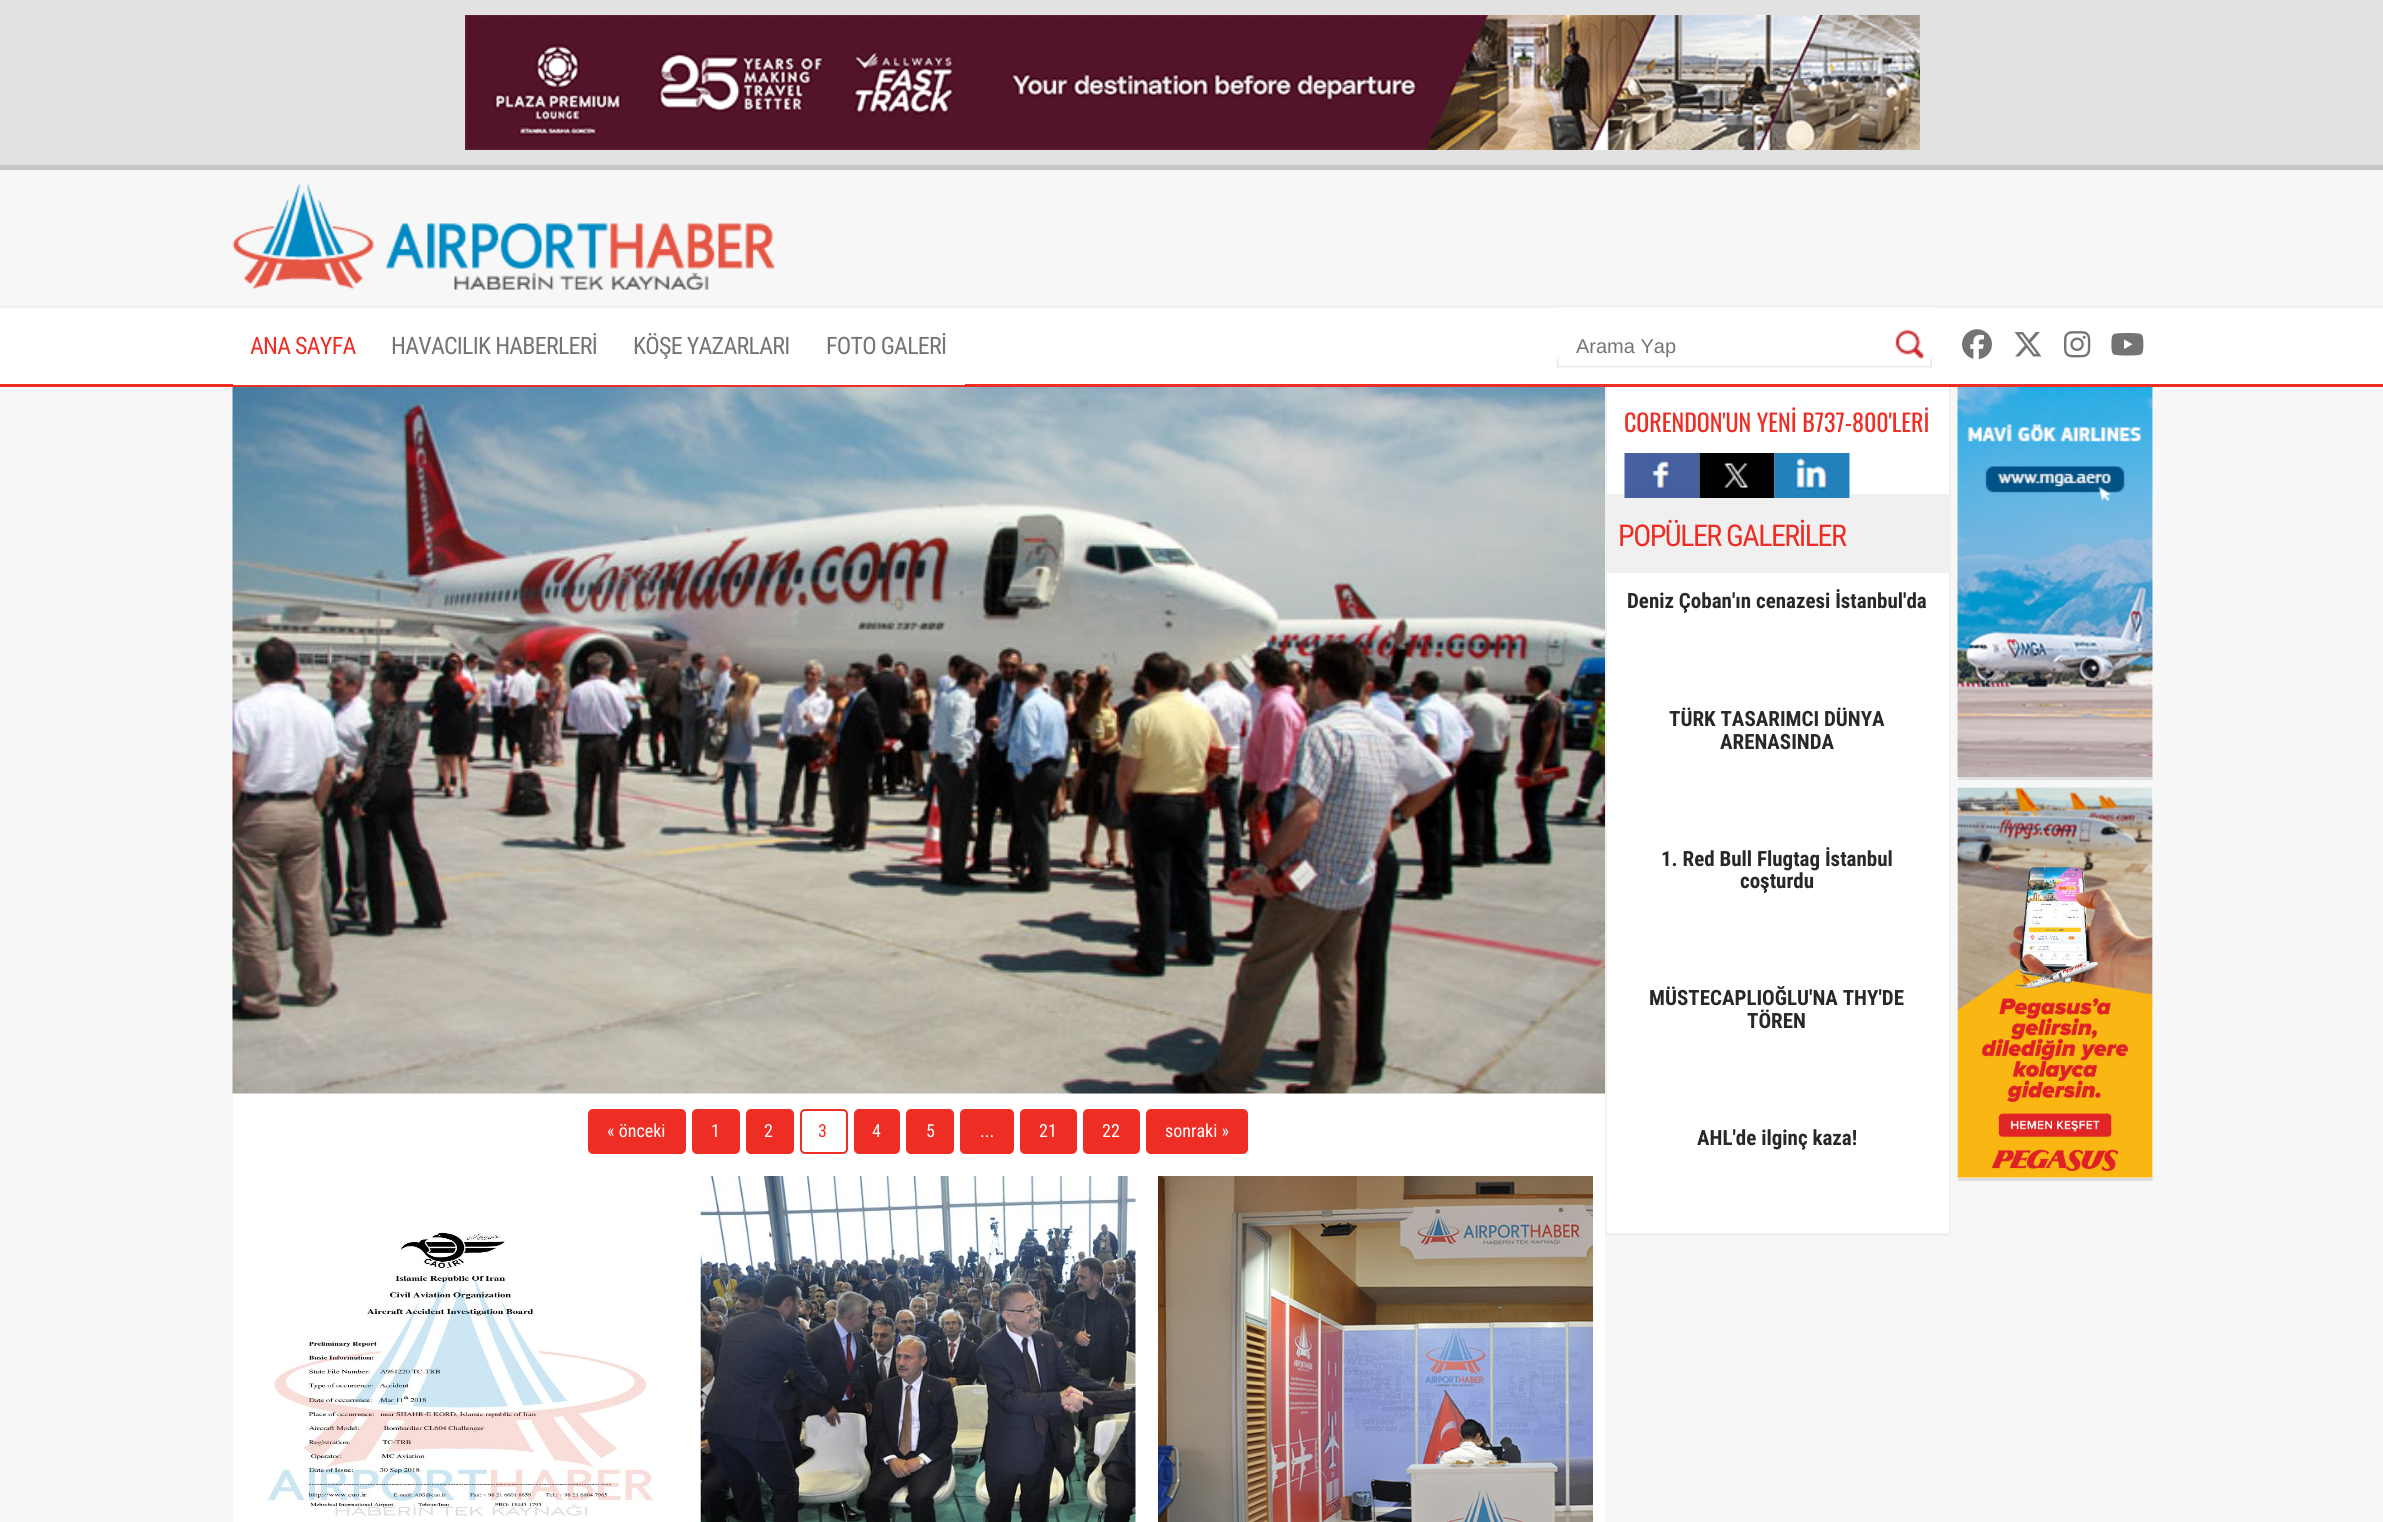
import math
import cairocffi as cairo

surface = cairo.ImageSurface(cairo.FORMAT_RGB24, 2383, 1522)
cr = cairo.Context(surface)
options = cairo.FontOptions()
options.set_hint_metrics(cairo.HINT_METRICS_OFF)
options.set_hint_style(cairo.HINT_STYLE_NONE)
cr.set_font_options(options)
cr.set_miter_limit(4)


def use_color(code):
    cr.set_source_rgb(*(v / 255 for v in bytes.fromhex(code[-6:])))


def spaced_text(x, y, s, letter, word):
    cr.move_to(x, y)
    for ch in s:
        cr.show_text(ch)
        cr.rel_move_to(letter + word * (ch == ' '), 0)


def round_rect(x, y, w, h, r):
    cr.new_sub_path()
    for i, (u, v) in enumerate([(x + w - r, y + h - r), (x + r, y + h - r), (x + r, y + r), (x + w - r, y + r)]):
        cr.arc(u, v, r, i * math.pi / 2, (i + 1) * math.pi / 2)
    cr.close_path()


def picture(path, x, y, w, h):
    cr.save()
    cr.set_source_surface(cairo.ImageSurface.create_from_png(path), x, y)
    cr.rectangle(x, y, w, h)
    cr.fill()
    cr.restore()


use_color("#f7f7f7")
cr.paint()
use_color("#e2e2e2")
cr.rectangle(0, 0, 2383, 165)
cr.fill()
picture("img1.png", 465, 15, 1455, 135)
use_color("#c6c6c6")
cr.rectangle(0, 165, 2383, 5)
cr.fill()
picture("img2.png", 232, 184, 544, 106)
use_color("#ffffff")
cr.rectangle(0, 308, 2383, 76)
cr.fill()
use_color("#f1f1f1")
cr.rectangle(0, 305, 2383, 3)
cr.fill()
use_color("#ee2e24")
cr.rectangle(0, 384, 2383, 3)
cr.fill()
use_color("#ffffff")
cr.rectangle(233, 384, 732, 1)
cr.fill()
cr.select_font_face("Roboto Condensed")
cr.set_font_size(24)
use_color("#ee2e24")
spaced_text(250, 354, "ANA SAYFA", -0.75, 0)
use_color("#747474")
spaced_text(391, 354, "HAVACILIK HABERLERİ", -0.75, 0)
spaced_text(633, 354, "KÖŞE YAZARLARI", -0.75, 0)
spaced_text(826, 354, "FOTO GALERİ", -0.75, 0)
picture("img3.png", 1557, 307, 375, 61)
cr.select_font_face("Liberation Sans")
cr.set_font_size(20)
cr.move_to(1576, 353)
cr.show_text("Arama Yap")
picture("img4.png", 1962, 329, 30, 30)
picture("img5.png", 2014, 332, 28, 25)
picture("img6.png", 2064, 331, 27, 27)
picture("img7.png", 2111, 333, 33, 23)
use_color("#ffffff")
cr.rectangle(233, 1093, 1372, 429)
cr.fill()
picture("img8.png", 232, 387, 1373, 707)
use_color("#ee2e24")
round_rect(589, 1110, 96, 43, 4)
cr.fill_preserve()
cr.stroke()
cr.select_font_face("Roboto Condensed")
cr.set_font_size(18)
use_color("#ffffff")
cr.move_to(607, 1137)
cr.show_text("« önceki")
use_color("#ee2e24")
round_rect(693, 1110, 46, 43, 4)
cr.fill_preserve()
cr.stroke()
use_color("#ffffff")
cr.move_to(711, 1137)
cr.show_text("1")
use_color("#ee2e24")
round_rect(747, 1110, 46, 43, 4)
cr.fill_preserve()
cr.stroke()
use_color("#ffffff")
cr.move_to(764, 1137)
cr.show_text("2")
round_rect(801, 1110, 46, 43, 4)
use_color("#ee2e24")
cr.stroke()
cr.move_to(818, 1137)
cr.show_text("3")
round_rect(855, 1110, 44, 43, 4)
cr.fill_preserve()
cr.stroke()
use_color("#ffffff")
cr.move_to(872, 1137)
cr.show_text("4")
use_color("#ee2e24")
round_rect(907, 1110, 46, 43, 4)
cr.fill_preserve()
cr.stroke()
use_color("#ffffff")
cr.move_to(926, 1137)
cr.show_text("5")
use_color("#ee2e24")
round_rect(961, 1110, 52, 43, 4)
cr.fill_preserve()
cr.stroke()
use_color("#ffffff")
cr.move_to(980, 1137)
cr.show_text("...")
use_color("#ee2e24")
round_rect(1021, 1110, 55, 43, 4)
cr.fill_preserve()
cr.stroke()
use_color("#ffffff")
cr.move_to(1039, 1137)
cr.show_text("21")
use_color("#ee2e24")
round_rect(1084, 1110, 55, 43, 4)
cr.fill_preserve()
cr.stroke()
use_color("#ffffff")
cr.move_to(1102, 1137)
cr.show_text("22")
use_color("#ee2e24")
round_rect(1147, 1110, 100, 43, 4)
cr.fill_preserve()
cr.stroke()
use_color("#ffffff")
cr.move_to(1165, 1137)
cr.show_text("sonraki »")
picture("img9.png", 267, 1232, 387, 284)
picture("img10.png", 700, 1176, 436, 346)
picture("img11.png", 1158, 1176, 435, 346)
cr.rectangle(1607, 387, 342, 846)
cr.fill()
use_color("#f0f0f0")
cr.rectangle(1605, 1233, 345, 3)
cr.fill()
cr.rectangle(1949, 387, 2, 846)
cr.fill()
cr.rectangle(1605, 387, 2, 846)
cr.fill()
cr.select_font_face("Oswald")
cr.set_font_size(24)
use_color("#ee2e24")
cr.move_to(1624, 432)
cr.show_text("CORENDON'UN YENİ B737-800'LERİ")
use_color("#f0f0f0")
cr.rectangle(1607, 494, 342, 79)
cr.fill()
picture("img12.png", 1624, 453, 76, 45)
picture("img13.png", 1699, 453, 76, 45)
picture("img14.png", 1774, 453, 76, 45)
cr.select_font_face("Roboto Condensed")
cr.set_font_size(30)
use_color("#ee2e24")
spaced_text(1618, 546, "POPÜLER GALERİLER", -1.5, 0)
cr.select_font_face("Roboto Condensed", cairo.FONT_SLANT_NORMAL, cairo.FONT_WEIGHT_BOLD)
cr.set_font_size(21)
use_color("#282828")
cr.move_to(1627, 608)
cr.show_text("Deniz Çoban'ın cenazesi İstanbul'da")
cr.move_to(1669, 726)
cr.show_text("TÜRK TASARIMCI DÜNYA")
cr.move_to(1720, 749)
cr.show_text("ARENASINDA")
cr.move_to(1661, 866)
cr.show_text("1. Red Bull Flugtag İstanbul")
cr.move_to(1740, 888)
cr.show_text("coşturdu")
cr.move_to(1649, 1005)
cr.show_text("MÜSTECAPLIOĞLU'NA THY'DE")
cr.move_to(1747, 1028)
cr.show_text("TÖREN")
cr.move_to(1697, 1145)
cr.show_text("AHL'de ilginç kaza!")
use_color("#ffffff")
cr.rectangle(2152, 387, 1, 390)
cr.fill()
use_color("#dfdfdf")
cr.rectangle(1958, 777, 195, 3)
cr.fill()
picture("img15.png", 1957, 387, 196, 390)
use_color("#ffffff")
cr.rectangle(1958, 788, 195, 390)
cr.fill()
use_color("#dfdfdf")
cr.rectangle(1958, 1178, 195, 3)
cr.fill()
picture("img16.png", 1957, 787, 196, 391)
surface.write_to_png("result.png")
